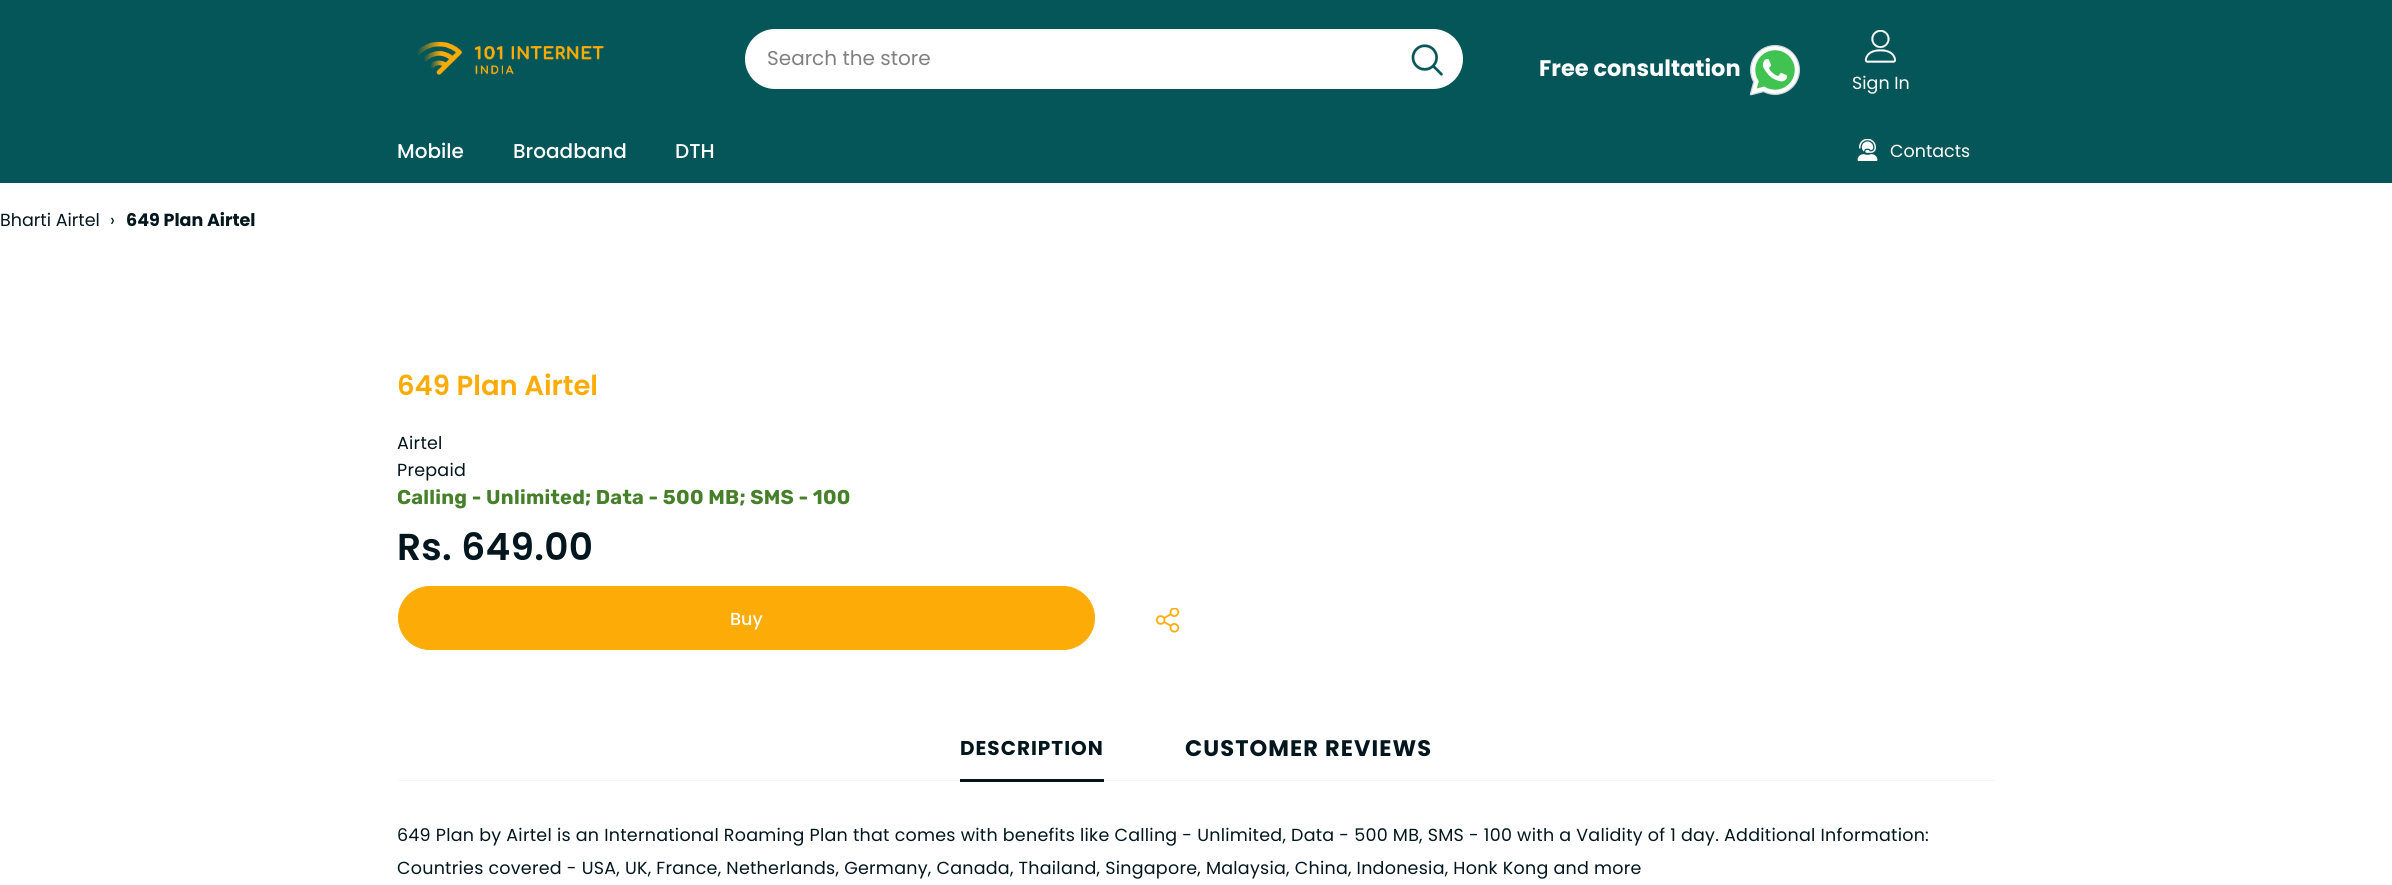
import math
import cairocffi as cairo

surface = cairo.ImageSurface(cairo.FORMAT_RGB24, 2392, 885)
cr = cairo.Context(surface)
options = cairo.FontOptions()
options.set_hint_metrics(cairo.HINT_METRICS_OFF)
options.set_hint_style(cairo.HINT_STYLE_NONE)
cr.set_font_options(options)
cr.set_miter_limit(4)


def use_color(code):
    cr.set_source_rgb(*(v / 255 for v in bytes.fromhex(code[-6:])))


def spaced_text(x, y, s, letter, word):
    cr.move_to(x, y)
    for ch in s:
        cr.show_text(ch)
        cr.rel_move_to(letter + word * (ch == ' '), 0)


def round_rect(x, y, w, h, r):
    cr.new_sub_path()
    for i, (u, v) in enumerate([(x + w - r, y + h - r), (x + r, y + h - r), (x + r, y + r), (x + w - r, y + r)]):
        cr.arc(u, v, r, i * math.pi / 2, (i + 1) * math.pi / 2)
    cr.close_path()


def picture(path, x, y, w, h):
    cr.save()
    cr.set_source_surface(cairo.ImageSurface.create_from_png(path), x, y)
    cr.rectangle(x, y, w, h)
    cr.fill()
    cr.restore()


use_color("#ffffff")
cr.paint()
use_color("#045658")
cr.rectangle(0, 0, 2392, 183)
cr.fill()
picture("img1.png", 417, 41, 187, 34)
use_color("#ffffff")
round_rect(745, 29, 718, 60, 30)
cr.fill()
cr.select_font_face("Poppins")
cr.set_font_size(20)
use_color("#808080")
cr.move_to(767, 65)
cr.show_text("Search the store")
picture("img2.png", 1411, 44, 32, 32)
cr.select_font_face("Poppins", cairo.FONT_SLANT_NORMAL, cairo.FONT_WEIGHT_BOLD)
cr.set_font_size(22.5)
use_color("#ffffff")
cr.move_to(1539, 76)
cr.show_text("Free consultation")
picture("img3.png", 1749, 45, 51, 51)
picture("img4.png", 1864, 30, 32, 33)
cr.select_font_face("Poppins")
cr.set_font_size(17.5)
cr.move_to(1852, 89)
cr.show_text("Sign In")
cr.select_font_face("Poppins Medium")
cr.set_font_size(20)
cr.move_to(397, 158)
cr.show_text("Mobile")
cr.move_to(513, 158)
cr.show_text("Broadband")
cr.move_to(675, 158)
cr.show_text("DTH")
picture("img5.png", 1857, 139, 21, 22)
cr.select_font_face("Poppins")
cr.set_font_size(17.5)
cr.move_to(1890, 157)
cr.show_text("Contacts")
use_color("#03161d")
cr.move_to(0, 226)
cr.show_text("Bharti Airtel")
cr.move_to(110, 226)
cr.show_text("›")
cr.select_font_face("Poppins", cairo.FONT_SLANT_NORMAL, cairo.FONT_WEIGHT_BOLD)
cr.move_to(126, 226)
cr.show_text("649 Plan Airtel")
cr.select_font_face("Poppins SemiBold")
cr.set_font_size(27.5)
use_color("#fdac07")
cr.move_to(397, 395)
cr.show_text("649 Plan Airtel")
cr.select_font_face("Poppins")
cr.set_font_size(17.5)
use_color("#03161d")
spaced_text(397, 449, "Airtel", 0.25, 0)
spaced_text(397, 476, "Prepaid", 0.25, 0)
cr.select_font_face("Rubik", cairo.FONT_SLANT_NORMAL, cairo.FONT_WEIGHT_BOLD)
cr.set_font_size(20)
use_color("#47802b")
spaced_text(397, 504, "Calling - Unlimited; Data - 500 MB; SMS - 100", 0.25, 0)
cr.select_font_face("Poppins SemiBold")
cr.set_font_size(37.5)
use_color("#03161d")
spaced_text(397, 560, "Rs. 649.00", 0.25, 0)
use_color("#fdac07")
round_rect(398.5, 586.5, 696, 63, 31.5)
cr.fill_preserve()
cr.set_line_width(1)
cr.stroke()
cr.select_font_face("Poppins Medium")
cr.set_font_size(17.5)
use_color("#ffffff")
cr.move_to(730, 625)
cr.show_text("Buy")
picture("img6.png", 1155, 608, 25, 25)
use_color("#f6f6f6")
cr.rectangle(398, 780, 1597, 1)
cr.fill()
cr.select_font_face("Poppins", cairo.FONT_SLANT_NORMAL, cairo.FONT_WEIGHT_BOLD)
cr.set_font_size(20)
use_color("#03161d")
spaced_text(960, 755, "DESCRIPTION", 1, 0)
cr.rectangle(960, 779, 144, 3)
cr.fill()
cr.set_font_size(22.5)
spaced_text(1185, 756, "CUSTOMER REVIEWS", 1.1, 0)
cr.select_font_face("Poppins")
cr.set_font_size(17.5)
spaced_text(397, 841, "649 Plan by Airtel is an International Roaming Plan that comes with benefits like Calling - Unlimited, Data - 500 MB, SMS - 100 with a Validity of 1 day. Additional Information:", 0.25, 0)
spaced_text(397, 874, "Countries covered - USA, UK, France, Netherlands, Germany, Canada, Thailand, Singapore, Malaysia, China, Indonesia, Honk Kong and more", 0.25, 0)
surface.write_to_png("result.png")
